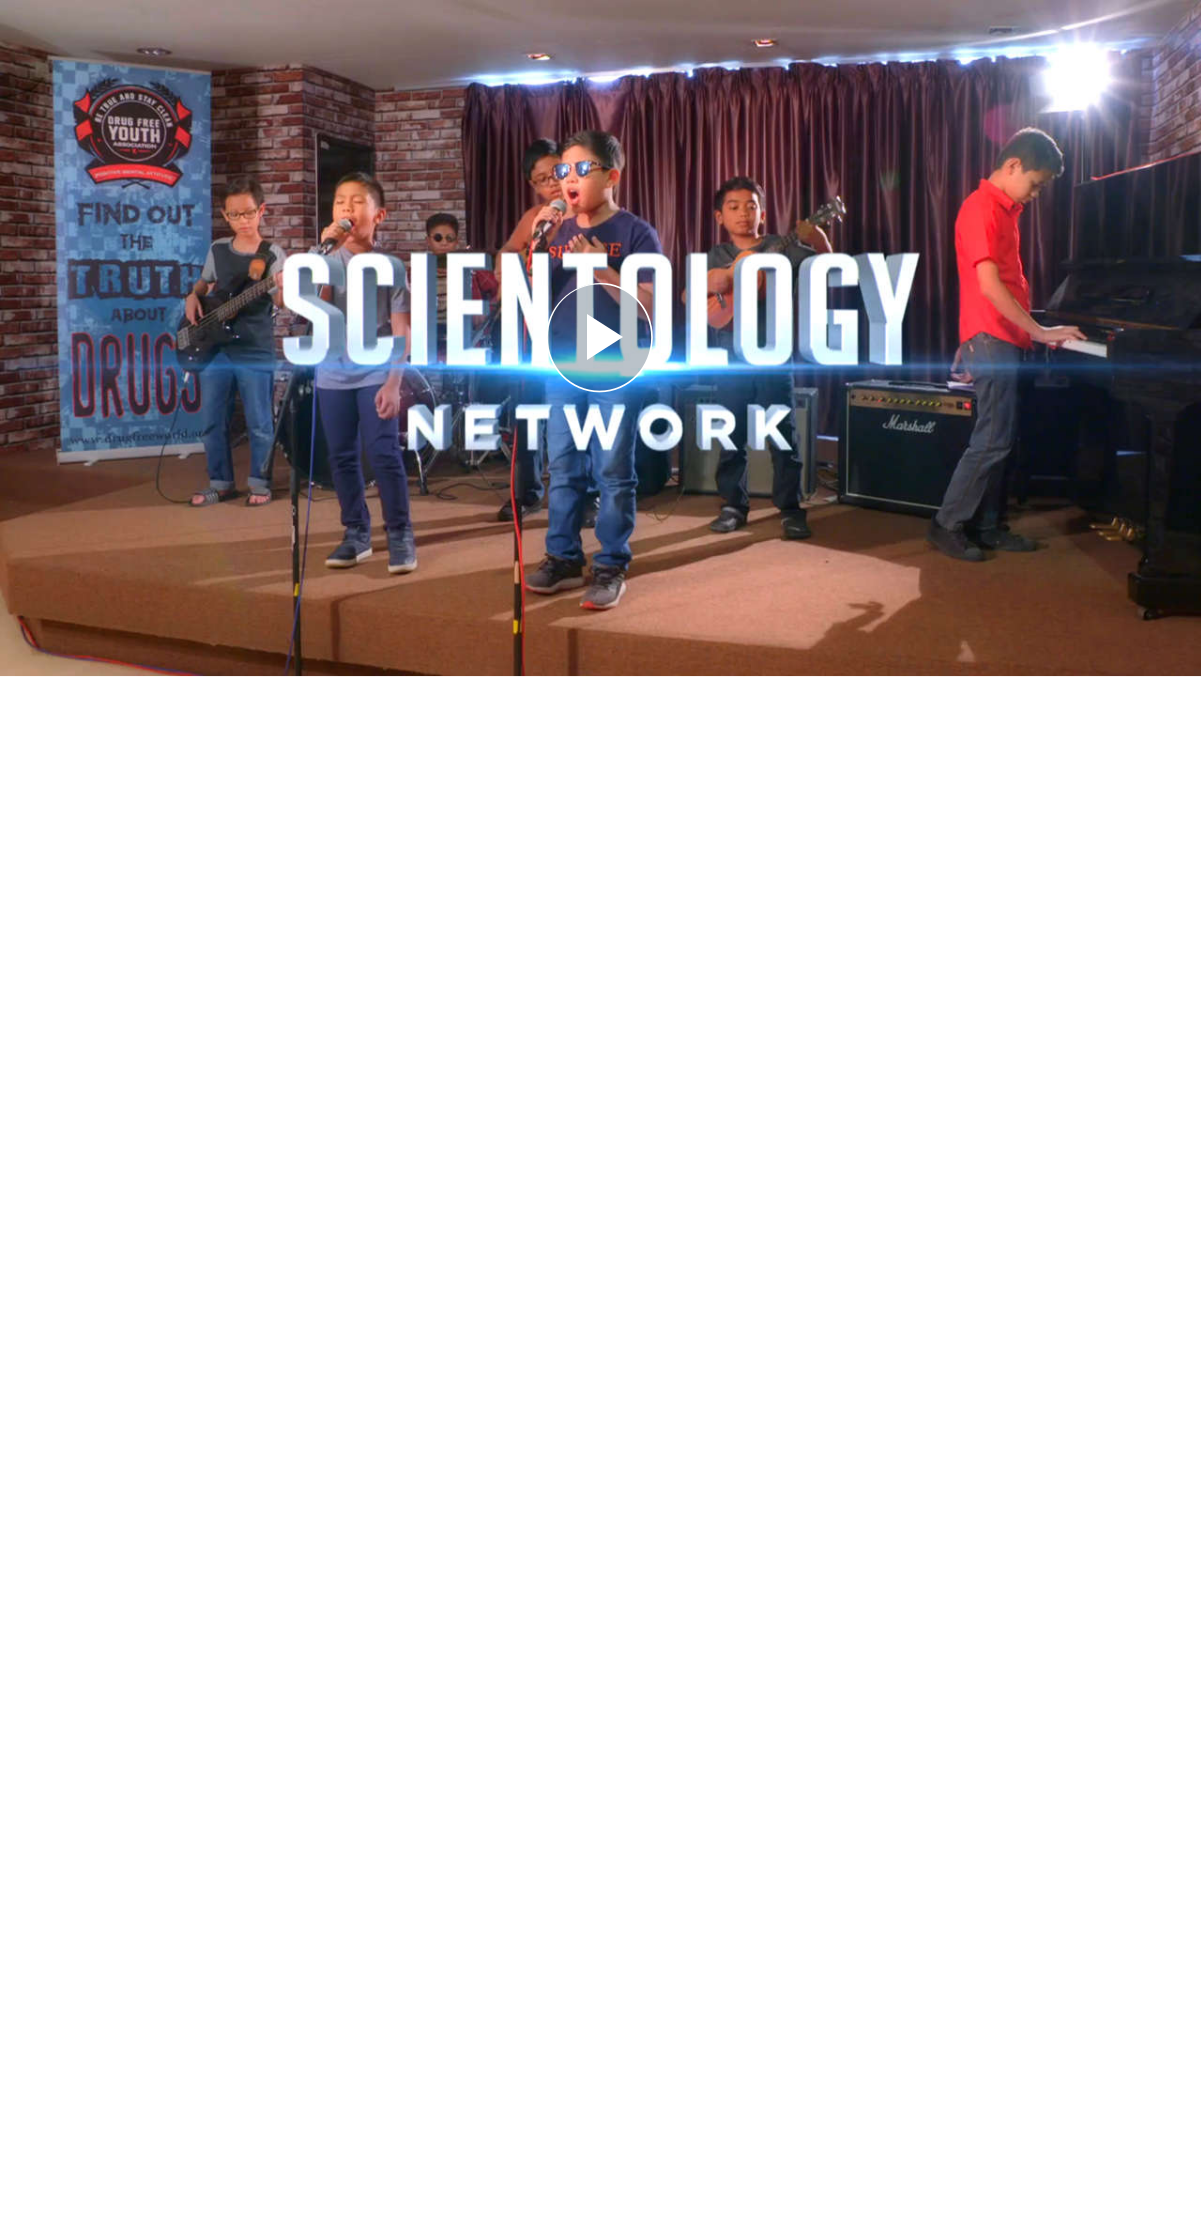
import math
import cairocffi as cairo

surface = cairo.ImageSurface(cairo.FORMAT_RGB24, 1201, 2225)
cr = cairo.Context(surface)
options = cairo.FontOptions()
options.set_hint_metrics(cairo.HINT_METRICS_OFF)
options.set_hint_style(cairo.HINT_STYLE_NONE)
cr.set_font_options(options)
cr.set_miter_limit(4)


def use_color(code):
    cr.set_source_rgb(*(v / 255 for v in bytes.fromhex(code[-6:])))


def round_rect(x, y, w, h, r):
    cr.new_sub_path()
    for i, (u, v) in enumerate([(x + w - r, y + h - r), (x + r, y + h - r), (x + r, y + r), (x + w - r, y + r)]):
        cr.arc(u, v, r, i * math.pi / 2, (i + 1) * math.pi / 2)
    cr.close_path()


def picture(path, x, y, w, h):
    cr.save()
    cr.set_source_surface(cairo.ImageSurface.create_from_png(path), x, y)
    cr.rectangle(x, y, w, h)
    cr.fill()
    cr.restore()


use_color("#ffffff")
cr.paint()
picture("img1.png", 0, 0, 1201, 677)
cr.set_source_rgba(0.094, 0.196, 0.298, 0.3)
cr.new_path()
cr.move_to(599.5, 283.5)
cr.curve_to(628.5, 283.5, 652, 307.5, 652, 337.5)
cr.curve_to(652, 367.5, 628.5, 391.5, 599.5, 391.5)
cr.curve_to(570.5, 391.5, 547, 367.5, 547, 337.5)
cr.curve_to(547, 307.5, 570.5, 283.5, 599.5, 283.5)
cr.close_path()
cr.fill()
cr.save()
round_rect(546, 283, 110, 110, 55)
cr.clip()
cr.new_path()
cr.move_to(599.5, 283.5)
cr.curve_to(628.5, 283.5, 652, 307.5, 652, 337.5)
cr.curve_to(652, 367.5, 628.5, 391.5, 599.5, 391.5)
cr.curve_to(570.5, 391.5, 547, 367.5, 547, 337.5)
cr.curve_to(547, 307.5, 570.5, 283.5, 599.5, 283.5)
cr.close_path()
use_color("#ffffff")
cr.set_line_width(1.7)
cr.stroke()
cr.restore()
use_color("#ffffff")
cr.new_path()
cr.move_to(623, 337)
cr.line_to(587, 314)
cr.line_to(587, 360)
cr.close_path()
cr.fill()
surface.write_to_png("result.png")
